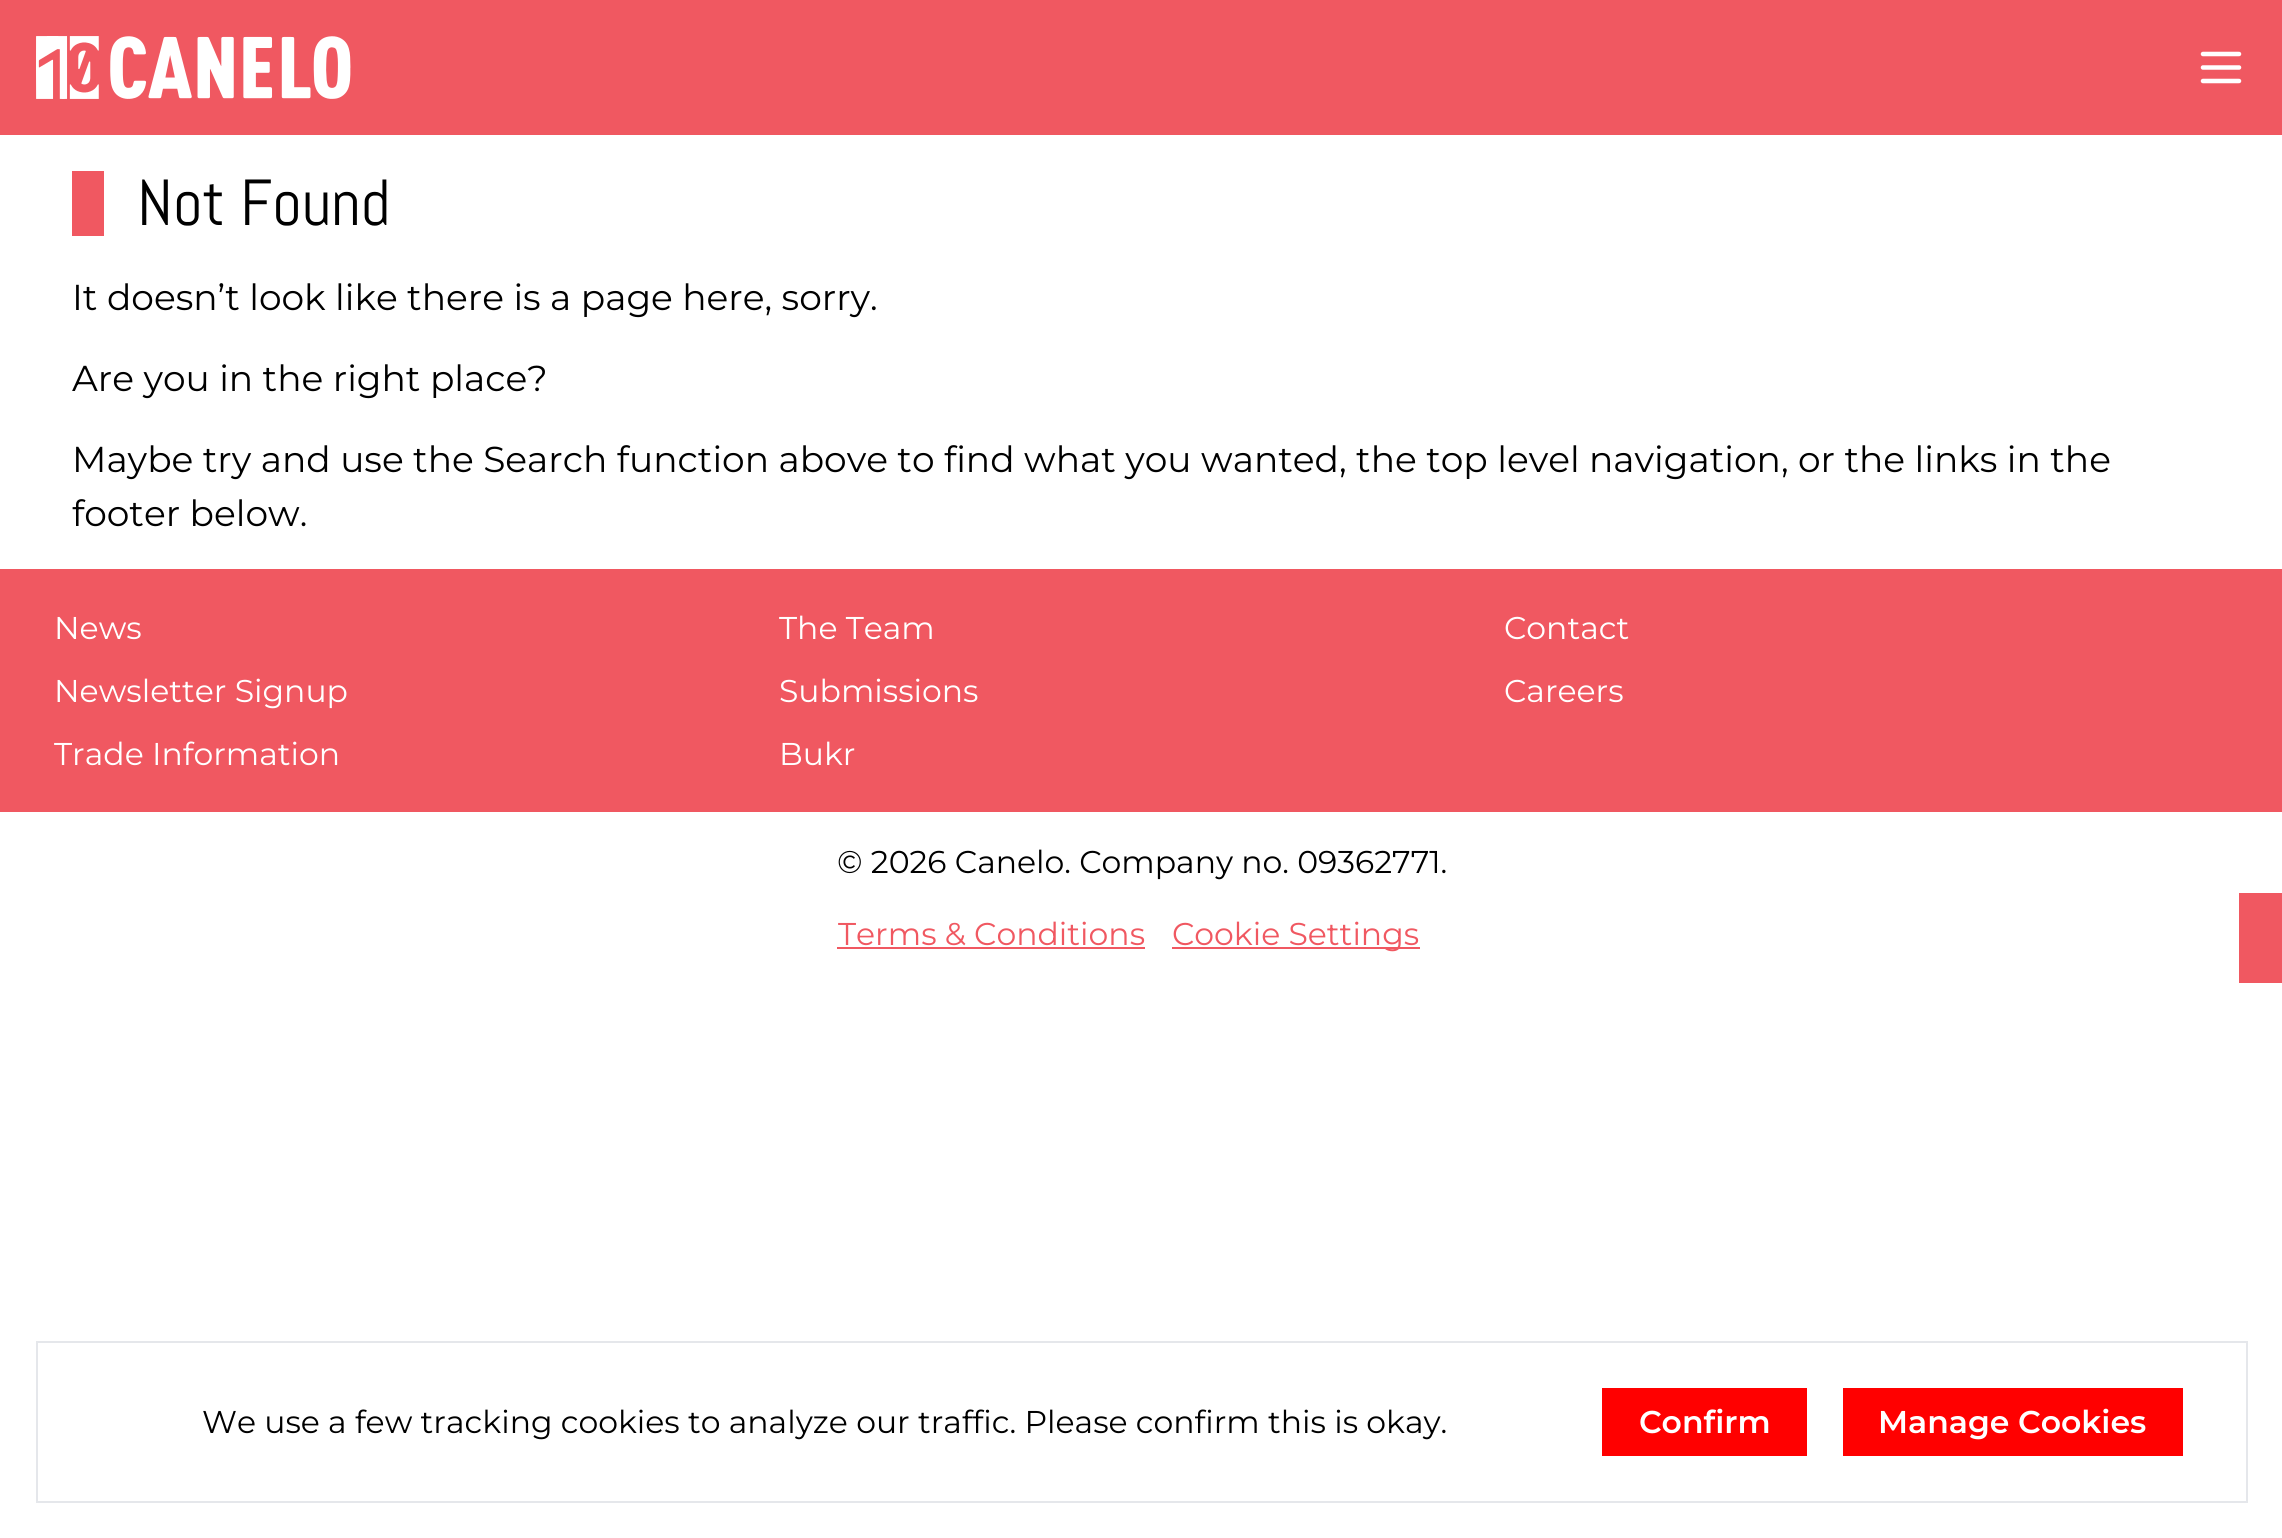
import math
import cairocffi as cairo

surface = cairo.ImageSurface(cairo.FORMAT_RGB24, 2282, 1538)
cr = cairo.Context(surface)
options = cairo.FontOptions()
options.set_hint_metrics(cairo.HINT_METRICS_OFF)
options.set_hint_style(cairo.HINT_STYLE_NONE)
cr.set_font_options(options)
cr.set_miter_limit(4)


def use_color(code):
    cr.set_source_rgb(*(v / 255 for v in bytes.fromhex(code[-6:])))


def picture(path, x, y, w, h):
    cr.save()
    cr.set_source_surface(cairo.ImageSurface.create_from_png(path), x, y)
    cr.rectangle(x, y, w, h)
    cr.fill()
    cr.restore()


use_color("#ffffff")
cr.paint()
use_color("#f05861")
cr.rectangle(0, 0, 2282, 135)
cr.fill()
picture("img1.png", 36, 36, 315, 63)
cr.new_path()
cr.move_to(2203, 54)
cr.line_to(2239, 54)
cr.move_to(2203, 67.5)
cr.line_to(2239, 67.5)
cr.move_to(2203, 81)
cr.line_to(2239, 81)
use_color("#ffffff")
cr.set_line_width(4.5)
cr.set_line_cap(cairo.LINE_CAP_ROUND)
cr.set_line_join(cairo.LINE_JOIN_ROUND)
cr.stroke()
use_color("#f05861")
cr.rectangle(72, 171, 32, 65)
cr.fill()
cr.select_font_face("Abel")
cr.set_font_size(65)
use_color("#000000")
cr.move_to(137, 225)
cr.show_text("Not Found")
cr.select_font_face("Montserrat Thin")
cr.set_font_size(36)
cr.move_to(72, 310)
cr.show_text("It doesn’t look like there is a page here, sorry.")
cr.move_to(72, 391)
cr.show_text("Are you in the right place?")
cr.move_to(72, 472)
cr.show_text("Maybe try and use the Search function above to find what you wanted, the top level navigation, or the links in the")
cr.move_to(72, 526)
cr.show_text("footer below.")
use_color("#f05861")
cr.rectangle(0, 569, 2282, 243)
cr.fill()
cr.set_font_size(31.5)
use_color("#ffffff")
cr.move_to(54, 639)
cr.show_text("News")
cr.move_to(779, 639)
cr.show_text("The Team")
cr.move_to(1504, 639)
cr.show_text("Contact")
cr.move_to(54, 702)
cr.show_text("Newsletter Signup")
cr.move_to(779, 702)
cr.show_text("Submissions")
cr.move_to(1504, 702)
cr.show_text("Careers")
cr.move_to(54, 765)
cr.show_text("Trade Information")
cr.move_to(779, 765)
cr.show_text("Bukr")
use_color("#000000")
cr.move_to(837, 873)
cr.show_text("© 2026 Canelo. Company no. 09362771.")
use_color("#f05861")
cr.move_to(838, 945)
cr.show_text("Terms & Conditions")
cr.rectangle(837, 947, 308, 2)
cr.fill()
cr.rectangle(1172, 947, 248, 2)
cr.fill()
cr.move_to(1172, 945)
cr.show_text("Cookie Settings")
cr.rectangle(2239, 893, 43, 90)
cr.fill()
cr.rectangle(37, 1342, 2210, 160)
use_color("#e5e7eb")
cr.set_line_width(2)
cr.set_line_cap(cairo.LINE_CAP_BUTT)
cr.set_line_join(cairo.LINE_JOIN_MITER)
cr.stroke()
use_color("#000000")
cr.move_to(202, 1433)
cr.show_text("We use a few tracking cookies to analyze our traffic. Please confirm this is okay.")
use_color("#ff0000")
cr.rectangle(1602, 1388, 205, 68)
cr.fill()
cr.select_font_face("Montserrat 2 Thin")
use_color("#ffffff")
cr.move_to(1639, 1433)
cr.show_text("Confirm")
use_color("#ff0000")
cr.rectangle(1843, 1388, 340, 68)
cr.fill()
use_color("#ffffff")
cr.move_to(1878, 1433)
cr.show_text("Manage Cookies")
surface.write_to_png("result.png")
